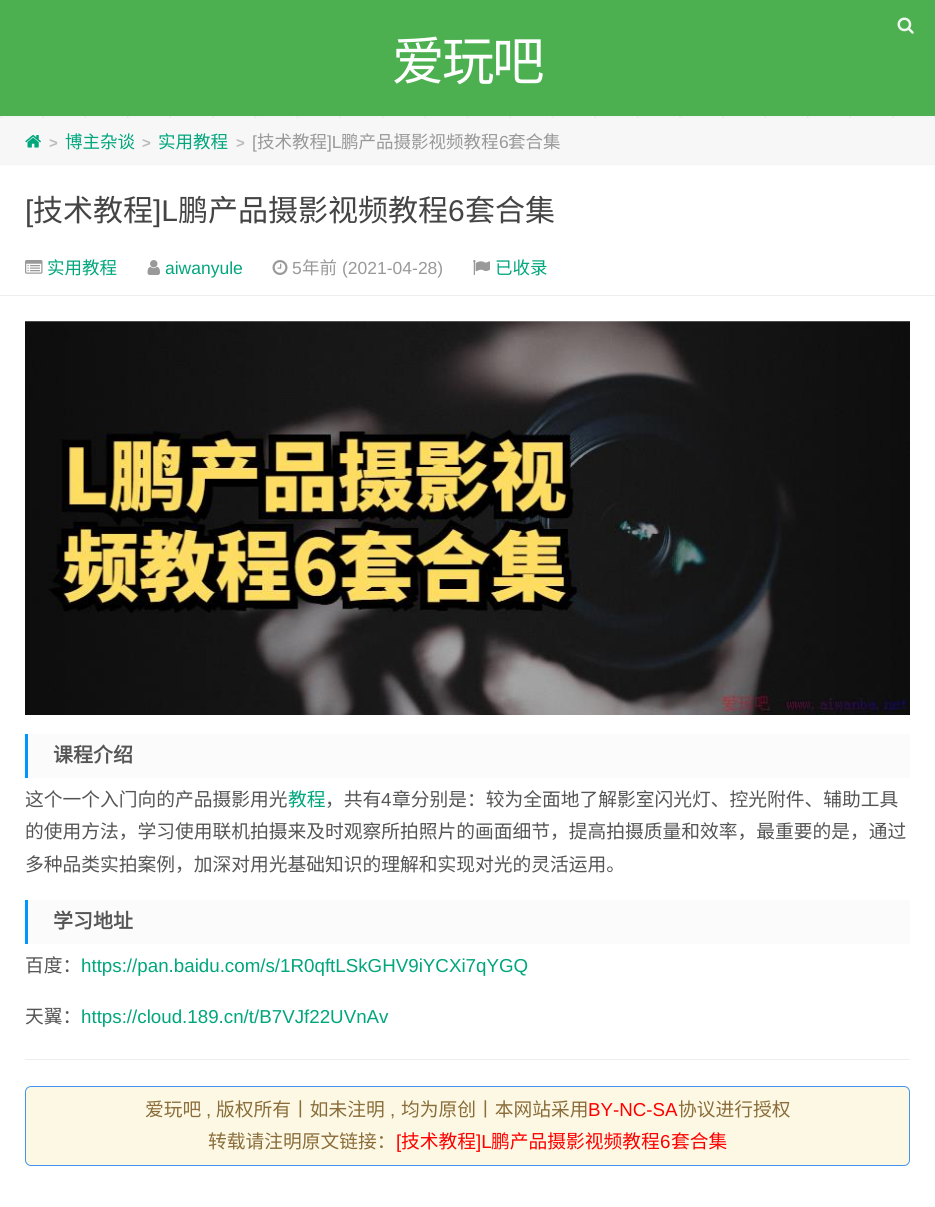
import math
import cairocffi as cairo

surface = cairo.ImageSurface(cairo.FORMAT_RGB24, 935, 1207)
cr = cairo.Context(surface)
options = cairo.FontOptions()
options.set_hint_metrics(cairo.HINT_METRICS_OFF)
options.set_hint_style(cairo.HINT_STYLE_NONE)
cr.set_font_options(options)
cr.set_miter_limit(4)


def use_color(code):
    cr.set_source_rgb(*(v / 255 for v in bytes.fromhex(code[-6:])))


def spaced_text(x, y, s, letter, word):
    cr.move_to(x, y)
    for ch in s:
        cr.show_text(ch)
        cr.rel_move_to(letter + word * (ch == ' '), 0)


def round_rect(x, y, w, h, r):
    cr.new_sub_path()
    for i, (u, v) in enumerate([(x + w - r, y + h - r), (x + r, y + h - r), (x + r, y + r), (x + w - r, y + r)]):
        cr.arc(u, v, r, i * math.pi / 2, (i + 1) * math.pi / 2)
    cr.close_path()


def picture(path, x, y, w, h):
    cr.save()
    cr.set_source_surface(cairo.ImageSurface.create_from_png(path), x, y)
    cr.rectangle(x, y, w, h)
    cr.fill()
    cr.restore()


use_color("#ffffff")
cr.paint()
picture("img1.png", 0, 116, 935, 2)
use_color("#4caf50")
cr.rectangle(0, 0, 935, 116)
cr.fill()
picture("img2.png", 897, 17, 17, 17)
cr.select_font_face("Noto Sans CJK SC")
cr.set_font_size(52.5)
use_color("#ffffff")
spaced_text(392, 80, "爱玩吧", -2.5, 0)
use_color("#f4f4f4")
cr.rectangle(0, 164, 935, 1)
cr.fill()
use_color("#f7f7f7")
cr.rectangle(0, 118, 935, 46)
cr.fill()
picture("img3.png", 25, 135, 16, 13)
cr.select_font_face("Liberation Sans", cairo.FONT_SLANT_NORMAL, cairo.FONT_WEIGHT_BOLD)
cr.set_font_size(15)
use_color("#bbbbbb")
cr.move_to(49, 148)
cr.show_text(">")
cr.select_font_face("Noto Sans CJK SC")
cr.set_font_size(17.5)
use_color("#00a67c")
cr.move_to(65, 148)
cr.show_text("博主杂谈")
cr.select_font_face("Liberation Sans", cairo.FONT_SLANT_NORMAL, cairo.FONT_WEIGHT_BOLD)
cr.set_font_size(15)
use_color("#bbbbbb")
cr.move_to(142, 148)
cr.show_text(">")
cr.select_font_face("Noto Sans CJK SC")
cr.set_font_size(17.5)
use_color("#00a67c")
cr.move_to(158, 148)
cr.show_text("实用教程")
cr.select_font_face("Liberation Sans", cairo.FONT_SLANT_NORMAL, cairo.FONT_WEIGHT_BOLD)
cr.set_font_size(15)
use_color("#bbbbbb")
cr.move_to(236, 148)
cr.show_text(">")
cr.select_font_face("Liberation Sans")
cr.set_font_size(17.5)
use_color("#999999")
cr.move_to(252, 148)
cr.show_text("[")
cr.select_font_face("Noto Sans CJK SC")
cr.move_to(257, 148)
cr.show_text("技术教程")
cr.select_font_face("Liberation Sans")
cr.move_to(327, 148)
cr.show_text("]L")
cr.select_font_face("Noto Sans CJK SC")
cr.move_to(341, 148)
cr.show_text("鹏产品摄影视频教程")
cr.select_font_face("Liberation Sans")
cr.move_to(499, 148)
cr.show_text("6")
cr.select_font_face("Noto Sans CJK SC")
cr.move_to(508, 148)
cr.show_text("套合集")
use_color("#eeeeee")
cr.rectangle(0, 295, 935, 1)
cr.fill()
cr.select_font_face("Liberation Sans")
cr.set_font_size(30)
use_color("#444444")
cr.move_to(25, 221)
cr.show_text("[")
cr.select_font_face("Noto Sans CJK SC")
cr.move_to(33, 221)
cr.show_text("技术教程")
cr.select_font_face("Liberation Sans")
cr.move_to(153, 221)
cr.show_text("]L")
cr.select_font_face("Noto Sans CJK SC")
cr.move_to(178, 221)
cr.show_text("鹏产品摄影视频教程")
cr.select_font_face("Liberation Sans")
cr.move_to(448, 221)
cr.show_text("6")
cr.select_font_face("Noto Sans CJK SC")
cr.move_to(465, 221)
cr.show_text("套合集")
picture("img4.png", 25, 260, 18, 14)
cr.set_font_size(17.5)
use_color("#00a67c")
cr.move_to(47, 274)
cr.show_text("实用教程")
picture("img5.png", 147, 260, 13, 15)
cr.select_font_face("Liberation Sans")
cr.move_to(165, 274)
cr.show_text("aiwanyule")
picture("img6.png", 272, 260, 16, 15)
use_color("#999999")
cr.move_to(292, 274)
cr.show_text("5")
cr.select_font_face("Noto Sans CJK SC")
cr.move_to(302, 274)
cr.show_text("年前")
cr.select_font_face("Liberation Sans")
cr.move_to(342, 274)
cr.show_text("(2021-04-28)")
picture("img7.png", 473, 260, 17, 15)
cr.select_font_face("Noto Sans CJK SC")
use_color("#00a67c")
cr.move_to(495, 274)
cr.show_text("已收录")
picture("img8.png", 25, 321, 885, 394)
use_color("#fbfbfb")
cr.rectangle(28, 734, 882, 44)
cr.fill()
use_color("#0095ff")
cr.rectangle(25, 734, 3, 44)
cr.fill()
cr.select_font_face("Noto Sans CJK SC", cairo.FONT_SLANT_NORMAL, cairo.FONT_WEIGHT_BOLD)
cr.set_font_size(20)
use_color("#555555")
cr.move_to(53, 762)
cr.show_text("课程介绍")
cr.select_font_face("Noto Sans CJK SC")
cr.set_font_size(18.75)
cr.move_to(25, 806)
cr.show_text("这个一个入门向的产品摄影用光")
use_color("#00a67c")
cr.move_to(288, 806)
cr.show_text("教程")
use_color("#555555")
cr.move_to(325, 806)
cr.show_text("，共有")
cr.select_font_face("Liberation Sans")
cr.move_to(381, 806)
cr.show_text("4")
cr.select_font_face("Noto Sans CJK SC")
cr.move_to(392, 806)
cr.show_text("章分别是：较为全面地了解影室闪光灯、控光附件、辅助工具")
cr.move_to(25, 838)
cr.show_text("的使用方法，学习使用联机拍摄来及时观察所拍照片的画面细节，提高拍摄质量和效率，最重要的是，通过")
cr.move_to(25, 871)
cr.show_text("多种品类实拍案例，加深对用光基础知识的理解和实现对光的灵活运用。")
use_color("#fbfbfb")
cr.rectangle(28, 900, 882, 44)
cr.fill()
use_color("#0095ff")
cr.rectangle(25, 900, 3, 44)
cr.fill()
cr.select_font_face("Noto Sans CJK SC", cairo.FONT_SLANT_NORMAL, cairo.FONT_WEIGHT_BOLD)
cr.set_font_size(20)
use_color("#555555")
cr.move_to(53, 928)
cr.show_text("学习地址")
cr.select_font_face("Noto Sans CJK SC")
cr.set_font_size(18.75)
cr.move_to(25, 972)
cr.show_text("百度：")
cr.select_font_face("Liberation Sans")
use_color("#00a67c")
cr.move_to(81, 972)
cr.show_text("https://pan.baidu.com/s/1R0qftLSkGHV9iYCXi7qYGQ")
cr.select_font_face("Noto Sans CJK SC")
use_color("#555555")
cr.move_to(25, 1023)
cr.show_text("天翼：")
cr.select_font_face("Liberation Sans")
use_color("#00a67c")
cr.move_to(81, 1023)
cr.show_text("https://cloud.189.cn/t/B7VJf22UVnAv")
use_color("#eeeeee")
cr.rectangle(25, 1059, 885, 1)
cr.fill()
use_color("#fcf8e3")
round_rect(25.5, 1086.5, 884, 79, 5.5)
cr.fill_preserve()
use_color("#4094ef")
cr.set_line_width(1)
cr.stroke()
cr.select_font_face("Noto Sans CJK SC")
use_color("#8a6d3b")
cr.move_to(145, 1116)
cr.show_text("爱玩吧")
cr.select_font_face("Liberation Sans")
cr.move_to(206, 1116)
cr.show_text(",")
cr.select_font_face("Noto Sans CJK SC")
cr.move_to(216, 1116)
cr.show_text("版权所有丨如未注明")
cr.select_font_face("Liberation Sans")
cr.move_to(390, 1116)
cr.show_text(",")
cr.select_font_face("Noto Sans CJK SC")
cr.move_to(401, 1116)
cr.show_text("均为原创丨本网站采用")
cr.select_font_face("Liberation Sans")
use_color("#ff0000")
cr.move_to(588, 1116)
cr.show_text("BY-NC-SA")
cr.select_font_face("Noto Sans CJK SC")
use_color("#8a6d3b")
cr.move_to(678, 1116)
cr.show_text("协议进行授权")
cr.move_to(208, 1148)
cr.show_text("转载请注明原文链接：")
cr.select_font_face("Liberation Sans")
use_color("#ff0000")
cr.move_to(396, 1148)
cr.show_text("[")
cr.select_font_face("Noto Sans CJK SC")
cr.move_to(401, 1148)
cr.show_text("技术教程")
cr.select_font_face("Liberation Sans")
cr.move_to(476, 1148)
cr.show_text("]L")
cr.select_font_face("Noto Sans CJK SC")
cr.move_to(491, 1148)
cr.show_text("鹏产品摄影视频教程")
cr.select_font_face("Liberation Sans")
cr.move_to(660, 1148)
cr.show_text("6")
cr.select_font_face("Noto Sans CJK SC")
cr.move_to(671, 1148)
cr.show_text("套合集")
surface.write_to_png("result.png")
